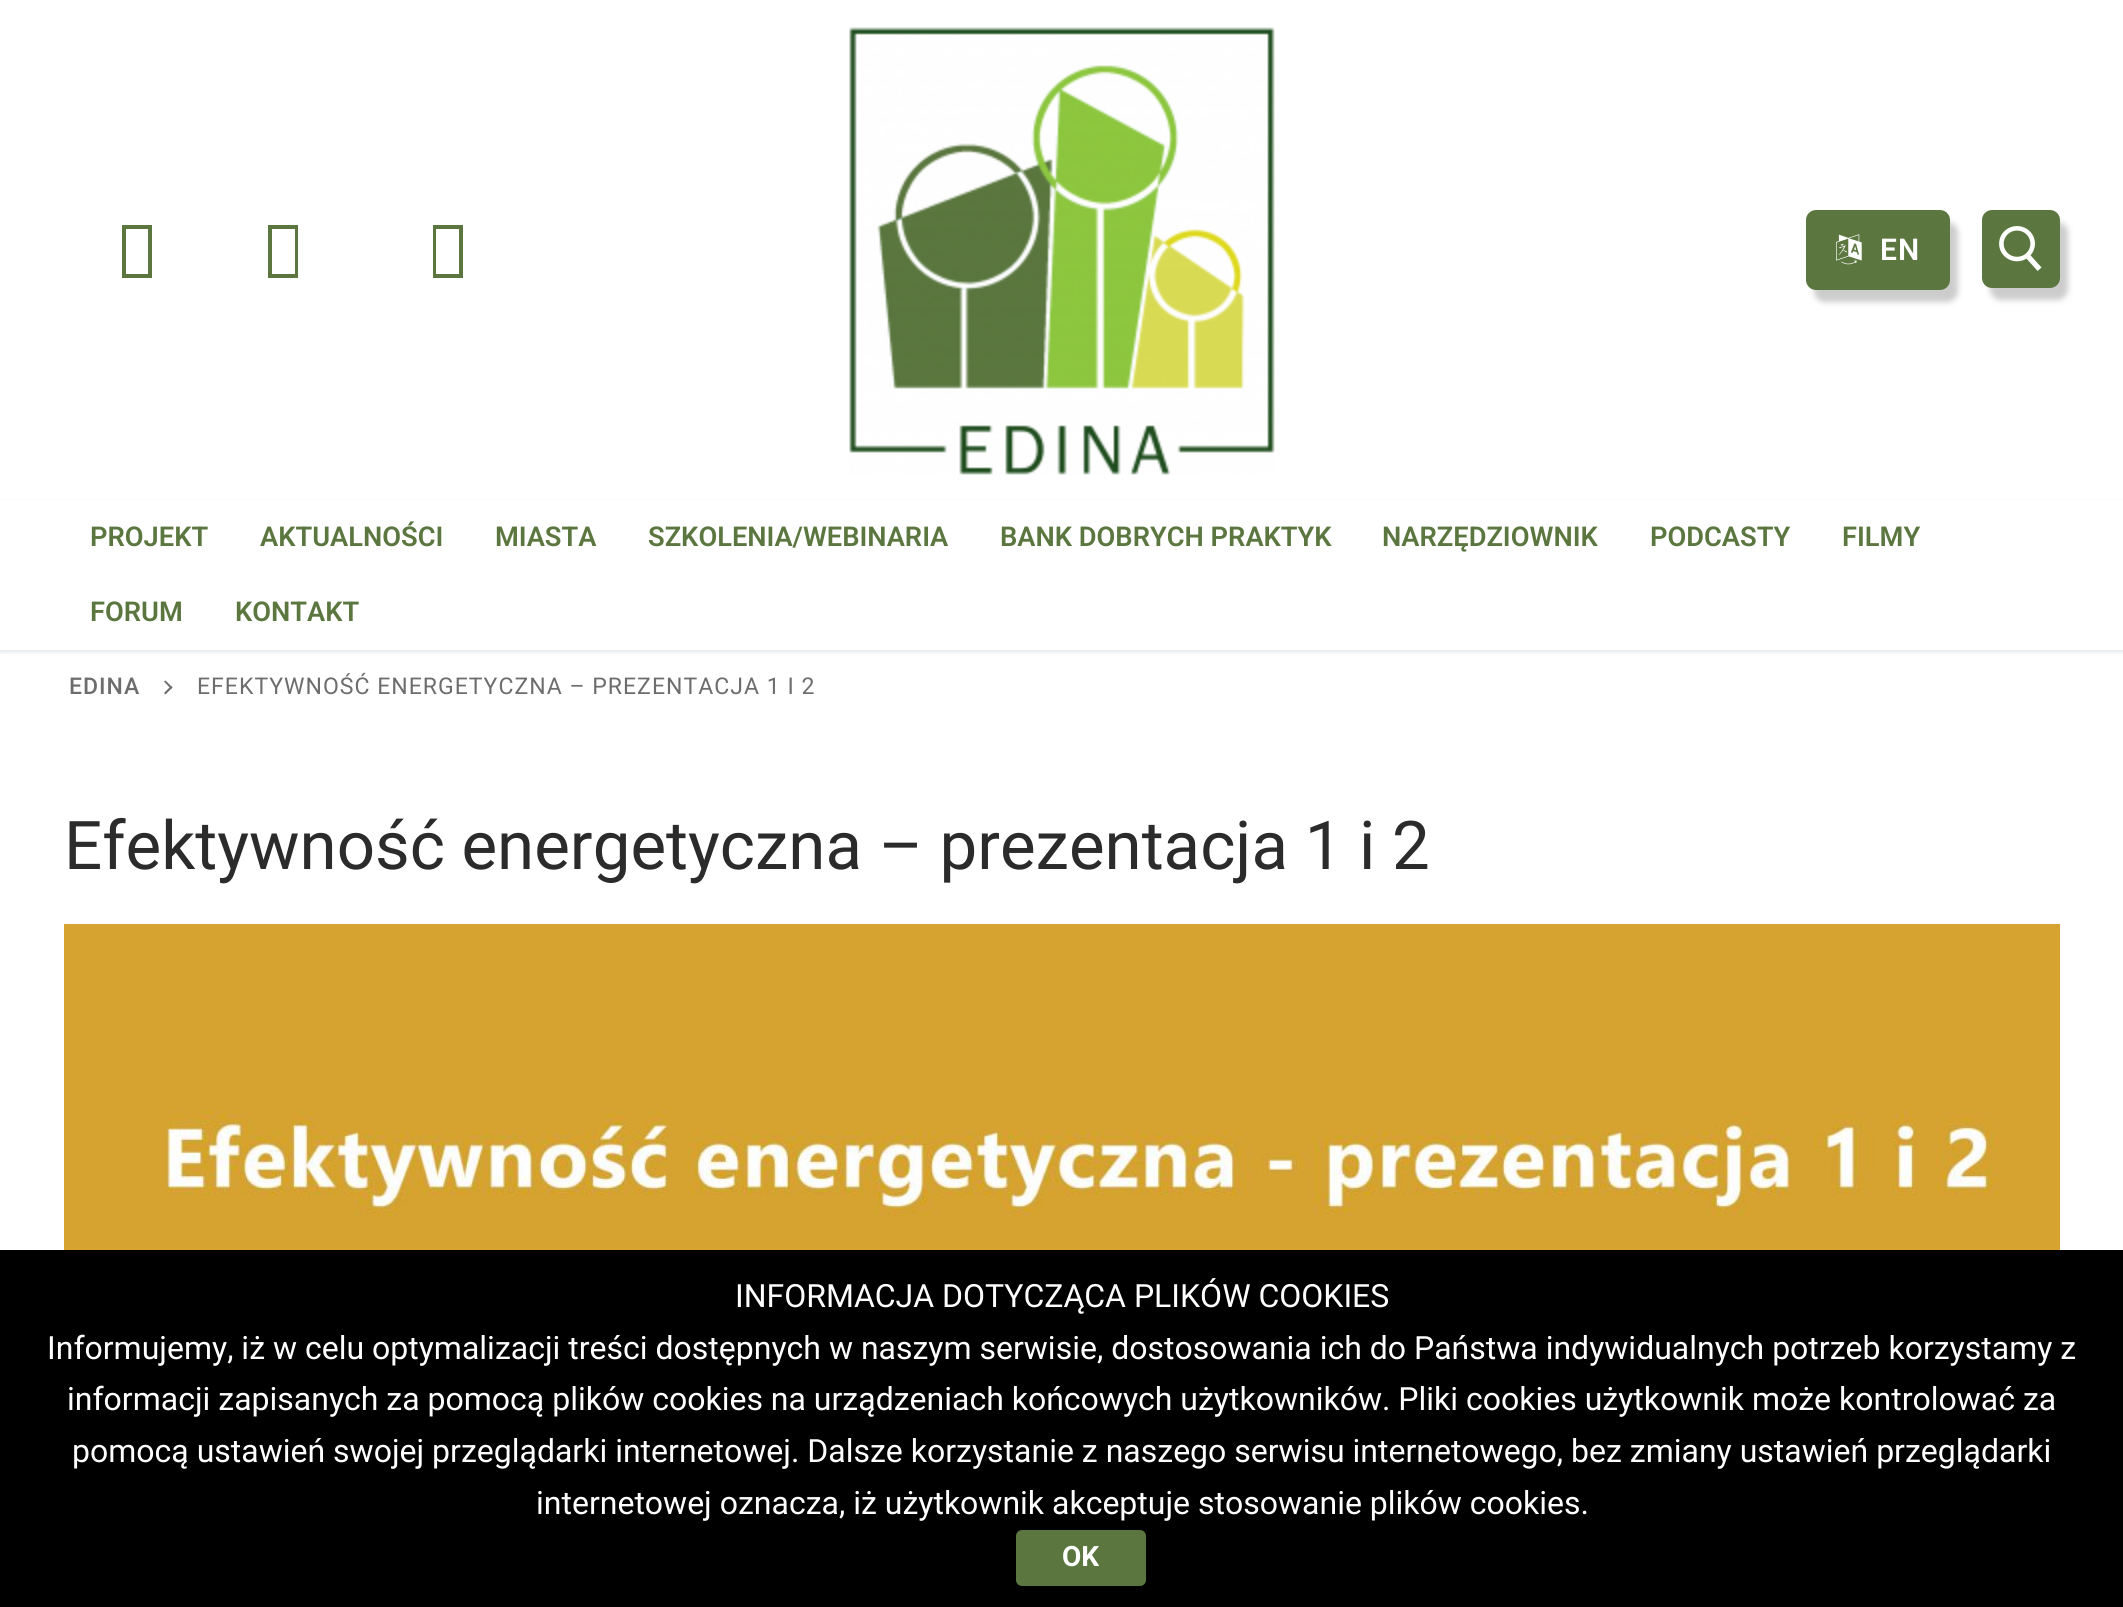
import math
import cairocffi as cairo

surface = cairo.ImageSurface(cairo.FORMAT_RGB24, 2123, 1607)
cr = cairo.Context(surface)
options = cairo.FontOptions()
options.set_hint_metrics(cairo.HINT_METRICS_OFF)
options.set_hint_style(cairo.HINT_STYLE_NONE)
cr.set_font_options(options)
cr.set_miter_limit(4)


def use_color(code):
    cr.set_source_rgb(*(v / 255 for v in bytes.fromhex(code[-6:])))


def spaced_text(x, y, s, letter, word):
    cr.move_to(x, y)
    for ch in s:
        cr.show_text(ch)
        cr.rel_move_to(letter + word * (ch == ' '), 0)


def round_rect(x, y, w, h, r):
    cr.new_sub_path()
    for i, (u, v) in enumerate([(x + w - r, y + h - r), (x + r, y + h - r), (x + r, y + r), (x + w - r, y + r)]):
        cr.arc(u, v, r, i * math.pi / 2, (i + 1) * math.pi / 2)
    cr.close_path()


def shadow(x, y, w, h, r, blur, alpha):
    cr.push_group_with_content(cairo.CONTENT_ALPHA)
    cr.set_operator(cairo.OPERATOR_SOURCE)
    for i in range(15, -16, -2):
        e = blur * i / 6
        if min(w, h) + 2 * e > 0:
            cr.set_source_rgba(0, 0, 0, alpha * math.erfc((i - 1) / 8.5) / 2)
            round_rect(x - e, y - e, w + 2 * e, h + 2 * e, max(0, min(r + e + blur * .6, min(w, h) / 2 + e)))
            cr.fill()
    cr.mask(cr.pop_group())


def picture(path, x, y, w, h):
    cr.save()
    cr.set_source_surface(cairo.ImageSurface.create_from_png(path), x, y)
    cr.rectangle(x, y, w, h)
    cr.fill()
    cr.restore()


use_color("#ffffff")
cr.paint()
use_color("#5b773f")
cr.new_path()
cr.move_to(122, 278)
cr.line_to(122, 225)
cr.line_to(152, 225)
cr.line_to(152, 278)
cr.close_path()
cr.move_to(126, 274)
cr.line_to(148, 274)
cr.line_to(148, 229)
cr.line_to(126, 229)
cr.close_path()
cr.fill()
cr.new_path()
cr.move_to(268, 278)
cr.line_to(268, 225)
cr.line_to(298, 225)
cr.line_to(298, 278)
cr.close_path()
cr.move_to(272, 274)
cr.line_to(295, 274)
cr.line_to(295, 229)
cr.line_to(272, 229)
cr.close_path()
cr.fill()
cr.new_path()
cr.move_to(433, 278)
cr.line_to(433, 225)
cr.line_to(463, 225)
cr.line_to(463, 278)
cr.close_path()
cr.move_to(436, 274)
cr.line_to(459, 274)
cr.line_to(459, 229)
cr.line_to(436, 229)
cr.close_path()
cr.fill()
picture("img1.png", 849, 27, 426, 448)
use_color("#000000")
shadow(1814, 222, 144, 80, 10, 3, 0.2)
use_color("#5b773f")
round_rect(1806, 210, 144, 80, 10)
cr.fill()
picture("img2.png", 1836, 234, 26, 31)
cr.select_font_face("Roboto SemiBold")
cr.set_font_size(30)
use_color("#ffffff")
spaced_text(1880, 260, "EN", 1, 0)
use_color("#000000")
shadow(1990, 222, 78, 78, 10, 3, 0.2)
use_color("#5b773f")
round_rect(1982, 210, 78, 78, 10)
cr.fill()
picture("img3.png", 1999, 226, 43, 45)
use_color("#e1e5ea")
shadow(0, 502, 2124, 150, 0, 2, 1)
use_color("#ffffff")
cr.rectangle(0, 500, 2123, 150)
cr.fill()
cr.set_font_size(27.25)
use_color("#5b773f")
cr.move_to(90, 546)
cr.show_text("PROJEKT")
cr.move_to(260, 546)
cr.show_text("AKTUALNOŚCI")
cr.move_to(495, 546)
cr.show_text("MIASTA")
cr.move_to(648, 546)
cr.show_text("SZKOLENIA/WEBINARIA")
cr.move_to(1000, 546)
cr.show_text("BANK DOBRYCH PRAKTYK")
cr.move_to(1382, 546)
cr.show_text("NARZĘDZIOWNIK")
cr.move_to(1650, 546)
cr.show_text("PODCASTY")
cr.move_to(1842, 546)
cr.show_text("FILMY")
cr.move_to(90, 621)
cr.show_text("FORUM")
cr.move_to(235, 621)
cr.show_text("KONTAKT")
cr.select_font_face("Roboto Medium")
cr.set_font_size(23.05)
use_color("#6d6d6d")
spaced_text(69, 694, "EDINA", 1, 0)
cr.new_path()
cr.move_to(172.5, 687.5)
cr.line_to(165.5, 694.5)
cr.line_to(164, 693)
cr.line_to(171, 686)
cr.close_path()
cr.fill()
cr.new_path()
cr.move_to(172.5, 687.5)
cr.line_to(171, 689)
cr.line_to(164, 681.5)
cr.line_to(165.5, 680.5)
cr.close_path()
cr.fill()
cr.select_font_face("Roboto")
spaced_text(197, 694, "EFEKTYWNOŚĆ ENERGETYCZNA – PREZENTACJA 1 I 2", 1, 0)
cr.set_font_size(67.2)
use_color("#2b2b2b")
cr.move_to(64, 869)
cr.show_text("Efektywność energetyczna – prezentacja 1 i 2")
picture("img4.png", 64, 924, 1996, 326)
use_color("#000000")
cr.rectangle(0, 1250, 2123, 357)
cr.fill()
cr.set_font_size(32)
use_color("#ffffff")
cr.move_to(735, 1307)
cr.show_text("INFORMACJA DOTYCZĄCA PLIKÓW COOKIES")
cr.move_to(47, 1359)
cr.show_text("Informujemy, iż w celu optymalizacji treści dostępnych w naszym serwisie, dostosowania ich do Państwa indywidualnych potrzeb korzystamy z")
cr.move_to(67, 1410)
cr.show_text("informacji zapisanych za pomocą plików cookies na urządzeniach końcowych użytkowników. Pliki cookies użytkownik może kontrolować za")
cr.move_to(72, 1462)
cr.show_text("pomocą ustawień swojej przeglądarki internetowej. Dalsze korzystanie z naszego serwisu internetowego, bez zmiany ustawień przeglądarki")
cr.move_to(536, 1514)
cr.show_text("internetowej oznacza, iż użytkownik akceptuje stosowanie plików cookies.")
use_color("#5b773f")
round_rect(1016, 1530, 130, 56, 6)
cr.fill()
cr.select_font_face("Roboto", cairo.FONT_SLANT_NORMAL, cairo.FONT_WEIGHT_BOLD)
cr.set_font_size(28)
use_color("#ffffff")
cr.move_to(1062, 1566)
cr.show_text("OK")
surface.write_to_png("result.png")
